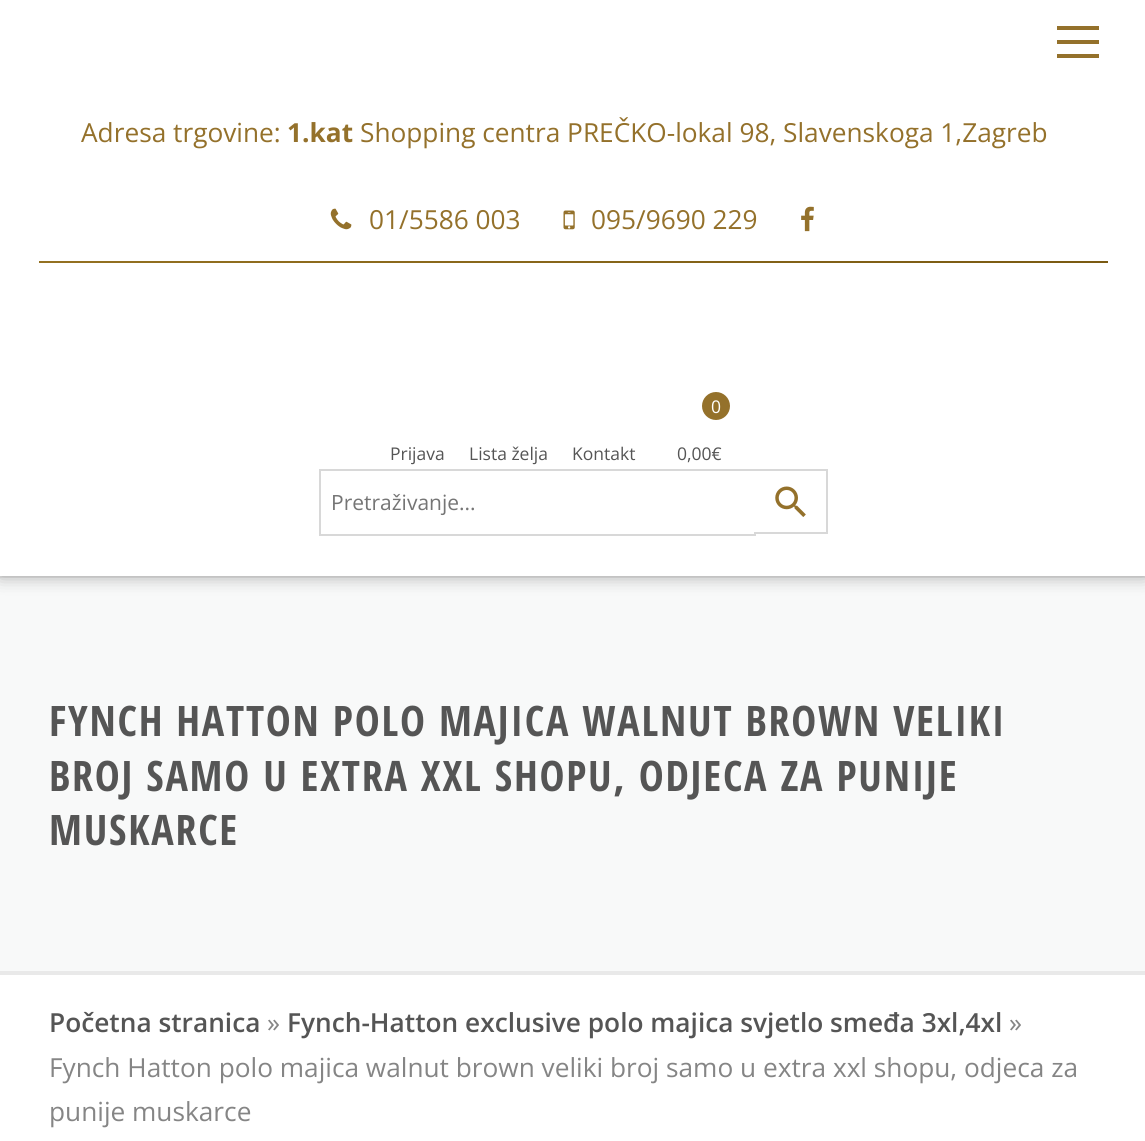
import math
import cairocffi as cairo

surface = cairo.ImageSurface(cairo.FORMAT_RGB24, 1145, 1141)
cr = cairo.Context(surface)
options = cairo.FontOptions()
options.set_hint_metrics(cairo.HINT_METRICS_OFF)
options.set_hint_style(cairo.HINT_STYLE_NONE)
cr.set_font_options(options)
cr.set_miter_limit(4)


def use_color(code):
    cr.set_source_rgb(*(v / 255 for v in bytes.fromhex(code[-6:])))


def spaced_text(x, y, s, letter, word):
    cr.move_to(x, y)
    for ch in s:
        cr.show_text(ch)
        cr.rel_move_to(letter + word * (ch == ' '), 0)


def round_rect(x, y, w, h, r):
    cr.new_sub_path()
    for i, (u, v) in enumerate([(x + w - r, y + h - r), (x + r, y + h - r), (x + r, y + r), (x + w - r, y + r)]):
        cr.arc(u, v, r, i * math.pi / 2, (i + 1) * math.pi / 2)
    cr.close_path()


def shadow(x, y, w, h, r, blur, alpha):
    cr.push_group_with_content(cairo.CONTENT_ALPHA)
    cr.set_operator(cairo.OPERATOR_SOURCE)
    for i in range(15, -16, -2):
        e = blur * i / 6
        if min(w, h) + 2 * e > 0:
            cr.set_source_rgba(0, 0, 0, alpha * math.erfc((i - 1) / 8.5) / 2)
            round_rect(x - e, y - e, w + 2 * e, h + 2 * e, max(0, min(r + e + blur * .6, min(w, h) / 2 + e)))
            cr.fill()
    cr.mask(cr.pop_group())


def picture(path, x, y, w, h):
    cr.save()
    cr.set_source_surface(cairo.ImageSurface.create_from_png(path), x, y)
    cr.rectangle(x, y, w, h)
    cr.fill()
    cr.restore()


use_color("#ffffff")
cr.paint()
use_color("#f8f9f9")
cr.rectangle(0, 578, 1145, 393)
cr.fill()
use_color("#e9e9e9")
cr.rectangle(0, 576, 1145, 2)
cr.fill()
use_color("#000000")
shadow(0, 0, 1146, 576, 0, 9, 0.33)
use_color("#ffffff")
cr.rectangle(0, 0, 1145, 576)
cr.fill()
use_color("#94712b")
cr.rectangle(1057, 40, 42, 4)
cr.fill()
cr.rectangle(1057, 26, 42, 4)
cr.fill()
cr.rectangle(1057, 54, 42, 4)
cr.fill()
cr.select_font_face("Open Sans")
cr.set_font_size(26.25)
cr.move_to(81, 142)
cr.show_text("Adresa trgovine:")
cr.select_font_face("Open Sans", cairo.FONT_SLANT_NORMAL, cairo.FONT_WEIGHT_BOLD)
cr.move_to(287, 142)
cr.show_text("1.kat")
cr.select_font_face("Open Sans")
cr.move_to(360, 142)
cr.show_text("Shopping centra PREČKO-lokal 98, Slavenskoga 1,Zagreb")
picture("img1.png", 330, 208, 22, 22)
cr.move_to(369, 229)
cr.show_text("01/5586 003")
picture("img2.png", 563, 210, 12, 20)
cr.move_to(591, 229)
cr.show_text("095/9690 229")
picture("img3.png", 801, 206, 13, 26)
gradient = cairo.LinearGradient(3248, 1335, 1106, -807)
gradient.add_color_stop_rgba(0, 0.58, 0.443, 0.129, 1)
gradient.add_color_stop_rgba(0.33, 0.933, 0.776, 0.376, 1)
gradient.add_color_stop_rgba(0.67, 0.447, 0.325, 0.051, 1)
gradient.add_color_stop_rgba(1, 0.58, 0.443, 0.129, 1)
cr.set_source(gradient)
cr.rectangle(39, 261, 1069, 2)
cr.fill()
cr.set_font_size(17.5)
use_color("#555555")
cr.move_to(390, 460)
cr.show_text("Prijava")
cr.move_to(469, 460)
cr.show_text("Lista želja")
cr.move_to(572, 460)
cr.show_text("Kontakt")
use_color("#94712b")
cr.new_path()
cr.arc(716, 406, 14, 0, 2 * math.pi)
cr.fill()
use_color("#ffffff")
cr.move_to(711, 413)
cr.show_text("0")
use_color("#555555")
cr.move_to(677, 460)
cr.show_text("0,00€")
use_color("#d8d8d8")
cr.rectangle(319, 469, 509, 2)
cr.fill()
cr.rectangle(826, 469, 2, 65)
cr.fill()
cr.rectangle(754, 532, 74, 2)
cr.fill()
picture("img4.png", 775, 486, 31, 31)
cr.rectangle(319, 534, 437, 2)
cr.fill()
cr.rectangle(319, 469, 2, 67)
cr.fill()
cr.set_font_size(21)
use_color("#757575")
cr.move_to(331, 510)
cr.show_text("Pretraživanje...")
cr.select_font_face("Open Sans Condensed", cairo.FONT_SLANT_NORMAL, cairo.FONT_WEIGHT_BOLD)
cr.set_font_size(42)
use_color("#555555")
spaced_text(49, 736, "FYNCH HATTON POLO MAJICA WALNUT BROWN VELIKI", 1.75, 0)
spaced_text(49, 791, "BROJ SAMO U EXTRA XXL SHOPU, ODJECA ZA PUNIJE", 1.75, 0)
spaced_text(49, 845, "MUSKARCE", 1.75, 0)
use_color("#e9e9e9")
cr.rectangle(0, 971, 1145, 4)
cr.fill()
cr.select_font_face("Open Sans SemiBold")
cr.set_font_size(26.25)
use_color("#555555")
cr.move_to(49, 1032)
cr.show_text("Početna stranica")
cr.select_font_face("Open Sans")
use_color("#858585")
cr.move_to(267, 1032)
cr.show_text("»")
cr.select_font_face("Open Sans SemiBold")
use_color("#555555")
cr.move_to(287, 1032)
cr.show_text("Fynch-Hatton exclusive polo majica svjetlo smeđa 3xl,4xl")
cr.select_font_face("Open Sans")
use_color("#858585")
cr.move_to(1009, 1032)
cr.show_text("»")
cr.move_to(49, 1077)
cr.show_text("Fynch Hatton polo majica walnut brown veliki broj samo u extra xxl shopu, odjeca za")
cr.move_to(49, 1121)
cr.show_text("punije muskarce")
surface.write_to_png("result.png")
